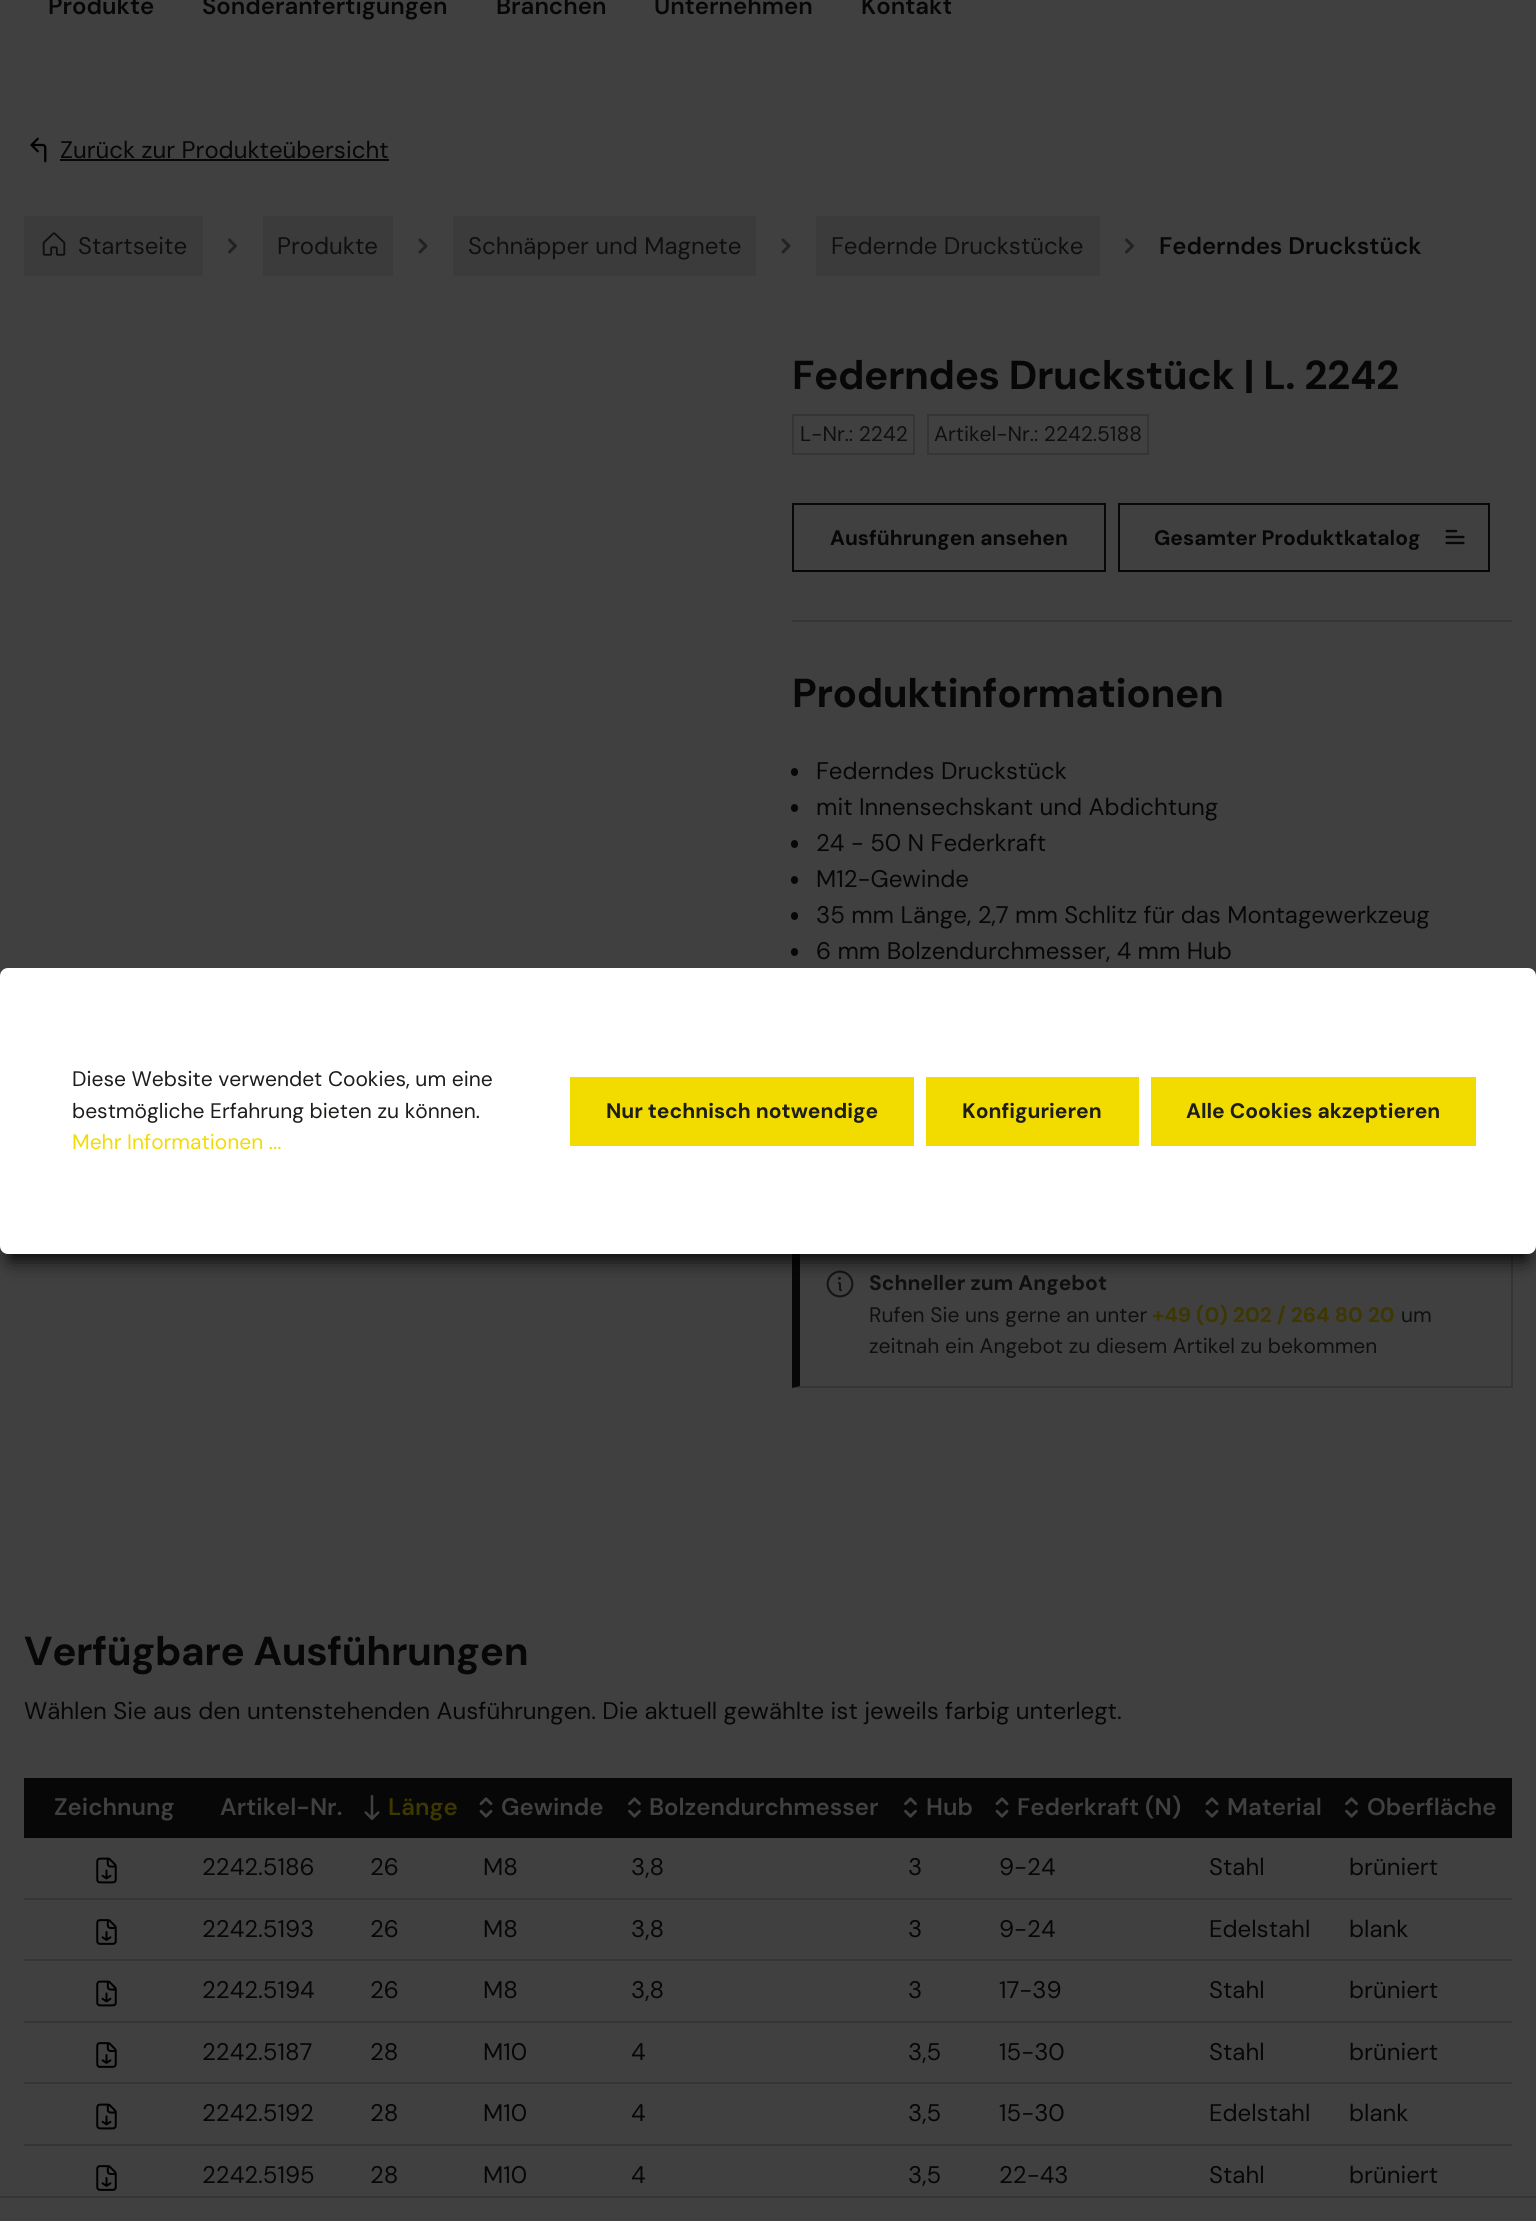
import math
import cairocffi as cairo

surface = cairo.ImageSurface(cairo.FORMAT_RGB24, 1536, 2221)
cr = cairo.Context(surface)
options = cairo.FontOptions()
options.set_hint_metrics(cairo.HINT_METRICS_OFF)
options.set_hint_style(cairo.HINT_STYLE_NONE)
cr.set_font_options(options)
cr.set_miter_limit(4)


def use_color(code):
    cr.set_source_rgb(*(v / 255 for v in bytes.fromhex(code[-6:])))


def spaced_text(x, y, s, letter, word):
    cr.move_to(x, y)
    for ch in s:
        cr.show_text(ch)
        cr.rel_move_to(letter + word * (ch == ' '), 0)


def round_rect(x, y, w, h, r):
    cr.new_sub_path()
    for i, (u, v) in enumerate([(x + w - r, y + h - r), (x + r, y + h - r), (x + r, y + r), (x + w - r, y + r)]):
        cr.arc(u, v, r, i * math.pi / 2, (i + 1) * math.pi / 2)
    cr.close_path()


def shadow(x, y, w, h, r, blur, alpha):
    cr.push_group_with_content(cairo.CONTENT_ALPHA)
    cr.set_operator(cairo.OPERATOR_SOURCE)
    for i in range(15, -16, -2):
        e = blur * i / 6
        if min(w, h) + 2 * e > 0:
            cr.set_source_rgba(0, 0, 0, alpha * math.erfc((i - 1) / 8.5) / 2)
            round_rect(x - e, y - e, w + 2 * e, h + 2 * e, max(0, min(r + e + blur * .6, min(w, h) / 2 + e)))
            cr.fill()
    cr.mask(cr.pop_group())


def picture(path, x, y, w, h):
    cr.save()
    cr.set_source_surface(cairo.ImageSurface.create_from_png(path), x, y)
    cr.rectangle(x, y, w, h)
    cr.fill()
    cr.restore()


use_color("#404040")
cr.paint()
cr.select_font_face("DM Sans SemiBold")
cr.set_font_size(24)
use_color("#070707")
cr.move_to(48, 14)
cr.show_text("Produkte")
cr.move_to(202, 14)
cr.show_text("Sonderanfertigungen")
cr.move_to(496, 14)
cr.show_text("Branchen")
cr.move_to(654, 14)
cr.show_text("Unternehmen")
cr.move_to(861, 14)
cr.show_text("Kontakt")
picture("img1.png", 30, 137, 17, 26)
cr.select_font_face("DM Sans")
cr.move_to(60, 158)
cr.show_text("Zurück zur Produkteübersicht")
cr.rectangle(60, 159, 329, 2)
cr.fill()
use_color("#3b3b3b")
cr.rectangle(24, 216, 179, 60)
cr.fill()
picture("img2.png", 42, 232, 24, 24)
use_color("#0f0f0f")
cr.move_to(78, 254)
cr.show_text("Startseite")
picture("img3.png", 228, 238, 9, 16)
use_color("#3b3b3b")
cr.rectangle(263, 216, 130, 60)
cr.fill()
use_color("#0f0f0f")
cr.move_to(277, 254)
cr.show_text("Produkte")
picture("img4.png", 418, 238, 10, 16)
use_color("#3b3b3b")
cr.rectangle(453, 216, 303, 60)
cr.fill()
use_color("#0f0f0f")
cr.move_to(468, 254)
cr.show_text("Schnäpper und Magnete")
picture("img4.png", 781, 238, 10, 16)
use_color("#3b3b3b")
cr.rectangle(816, 216, 284, 60)
cr.fill()
use_color("#0f0f0f")
cr.move_to(831, 254)
cr.show_text("Federnde Druckstücke")
picture("img3.png", 1125, 238, 9, 16)
cr.select_font_face("DM Sans SemiBold")
use_color("#070707")
cr.move_to(1159, 254)
cr.show_text("Federndes Druckstück")
cr.select_font_face("DM Sans", cairo.FONT_SLANT_NORMAL, cairo.FONT_WEIGHT_BOLD)
cr.set_font_size(40.4)
spaced_text(792, 389, "Federndes Druckstück | L. 2242", -0.4, 0)
cr.rectangle(793, 415, 121, 39)
use_color("#353535")
cr.stroke()
cr.select_font_face("DM Sans")
cr.set_font_size(21)
use_color("#0f0f0f")
cr.move_to(800, 441)
cr.show_text("L-Nr.: 2242")
cr.rectangle(928, 415, 220, 39)
use_color("#353535")
cr.stroke()
use_color("#0f0f0f")
cr.move_to(934, 441)
cr.show_text("Artikel-Nr.: 2242.5188")
cr.rectangle(793, 504, 312, 67)
use_color("#070707")
cr.stroke()
cr.select_font_face("DM Sans", cairo.FONT_SLANT_NORMAL, cairo.FONT_WEIGHT_BOLD)
cr.move_to(830, 545)
cr.show_text("Ausführungen ansehen")
cr.rectangle(1119, 504, 370, 67)
cr.stroke()
cr.move_to(1154, 545)
cr.show_text("Gesamter Produktkatalog")
picture("img5.png", 1445, 529, 20, 16)
use_color("#353535")
cr.rectangle(792, 620, 720, 2)
cr.fill()
cr.set_font_size(40.4)
use_color("#070707")
spaced_text(792, 707, "Produktinformationen", -0.4, 0)
round_rect(791, 768, 7, 8, 3.5)
cr.fill()
cr.select_font_face("DM Sans")
cr.set_font_size(24)
cr.move_to(816, 779)
cr.show_text("Federndes Druckstück")
round_rect(791, 804, 7, 8, 3.5)
cr.fill()
cr.move_to(816, 815)
cr.show_text("mit Innensechskant und Abdichtung")
round_rect(791, 840, 7, 8, 3.5)
cr.fill()
cr.move_to(816, 851)
cr.show_text("24 - 50 N Federkraft")
round_rect(791, 876, 7, 8, 3.5)
cr.fill()
cr.move_to(816, 887)
cr.show_text("M12-Gewinde")
round_rect(791, 912, 7, 8, 3.5)
cr.fill()
cr.move_to(816, 923)
cr.show_text("35 mm Länge, 2,7 mm Schlitz für das Montagewerkzeug")
round_rect(791, 948, 7, 8, 3.5)
cr.fill()
cr.move_to(816, 959)
cr.show_text("6 mm Bolzendurchmesser, 4 mm Hub")
use_color("#353535")
cr.rectangle(1511, 1254, 2, 134)
cr.fill()
cr.new_path()
cr.move_to(1512, 1388)
cr.line_to(792, 1388)
cr.line_to(800, 1386)
cr.line_to(1510, 1386)
cr.close_path()
cr.fill()
use_color("#070707")
cr.new_path()
cr.move_to(792, 1388)
cr.line_to(792, 1242)
cr.line_to(800, 1244)
cr.line_to(800, 1386)
cr.close_path()
cr.fill()
picture("img6.png", 826, 1270, 28, 28)
cr.select_font_face("DM Sans", cairo.FONT_SLANT_NORMAL, cairo.FONT_WEIGHT_BOLD)
cr.set_font_size(21)
use_color("#0f0f0f")
cr.move_to(869, 1290)
cr.show_text("Schneller zum Angebot")
cr.select_font_face("DM Sans")
cr.move_to(869, 1322)
cr.show_text("Rufen Sie uns gerne an unter")
cr.select_font_face("DM Sans", cairo.FONT_SLANT_NORMAL, cairo.FONT_WEIGHT_BOLD)
use_color("#3d3700")
cr.move_to(1152, 1322)
cr.show_text("+49 (0) 202 / 264 80 20")
cr.select_font_face("DM Sans")
use_color("#0f0f0f")
cr.move_to(1401, 1322)
cr.show_text("um")
cr.move_to(869, 1353)
cr.show_text("zeitnah ein Angebot zu diesem Artikel zu bekommen")
cr.select_font_face("DM Sans", cairo.FONT_SLANT_NORMAL, cairo.FONT_WEIGHT_BOLD)
cr.set_font_size(40.4)
use_color("#070707")
spaced_text(24, 1665, "Verfügbare Ausführungen", -0.4, 0)
cr.select_font_face("DM Sans")
cr.set_font_size(24)
cr.move_to(24, 1719)
cr.show_text("Wählen Sie aus den untenstehenden Ausführungen. Die aktuell gewählte ist jeweils farbig unterlegt.")
cr.rectangle(24, 1778, 1488, 60)
cr.fill()
cr.select_font_face("DM Sans SemiBold")
use_color("#404040")
cr.move_to(54, 1815)
cr.show_text("Zeichnung")
cr.move_to(220, 1815)
cr.show_text("Artikel-Nr.")
picture("img7.png", 364, 1795, 16, 25)
use_color("#3d3700")
cr.move_to(388, 1815)
cr.show_text("Länge")
picture("img8.png", 479, 1797, 14, 21)
use_color("#404040")
cr.move_to(501, 1815)
cr.show_text("Gewinde")
picture("img9.png", 628, 1797, 13, 21)
cr.move_to(649, 1815)
cr.show_text("Bolzendurchmesser")
picture("img9.png", 904, 1797, 13, 21)
cr.move_to(926, 1815)
cr.show_text("Hub")
picture("img8.png", 995, 1797, 14, 21)
cr.move_to(1017, 1815)
cr.show_text("Federkraft (N)")
picture("img8.png", 1205, 1797, 14, 21)
cr.move_to(1227, 1815)
cr.show_text("Material")
picture("img9.png", 1345, 1797, 13, 21)
cr.move_to(1367, 1815)
cr.show_text("Oberfläche")
picture("img10.png", 96, 1857, 21, 27)
cr.select_font_face("DM Sans")
use_color("#070707")
cr.move_to(202, 1875)
cr.show_text("2242.5186")
cr.move_to(370, 1875)
cr.show_text("26")
cr.move_to(483, 1875)
cr.show_text("M8")
cr.move_to(631, 1875)
cr.show_text("3,8")
cr.move_to(908, 1875)
cr.show_text("3")
cr.move_to(999, 1875)
cr.show_text("9-24")
cr.move_to(1209, 1875)
cr.show_text("Stahl")
use_color("#353535")
cr.rectangle(24, 1898, 1488, 2)
cr.fill()
use_color("#070707")
cr.move_to(1349, 1875)
cr.show_text("brüniert")
picture("img11.png", 96, 1919, 21, 26)
cr.move_to(202, 1937)
cr.show_text("2242.5193")
cr.move_to(370, 1937)
cr.show_text("26")
cr.move_to(483, 1937)
cr.show_text("M8")
cr.move_to(631, 1937)
cr.show_text("3,8")
cr.move_to(908, 1937)
cr.show_text("3")
cr.move_to(999, 1937)
cr.show_text("9-24")
cr.move_to(1209, 1937)
cr.show_text("Edelstahl")
use_color("#353535")
cr.rectangle(24, 1959, 1488, 2)
cr.fill()
use_color("#070707")
cr.move_to(1349, 1937)
cr.show_text("blank")
picture("img10.png", 96, 1980, 21, 27)
cr.move_to(202, 1998)
cr.show_text("2242.5194")
cr.move_to(370, 1998)
cr.show_text("26")
cr.move_to(483, 1998)
cr.show_text("M8")
cr.move_to(631, 1998)
cr.show_text("3,8")
cr.move_to(908, 1998)
cr.show_text("3")
cr.move_to(999, 1998)
cr.show_text("17-39")
cr.move_to(1209, 1998)
cr.show_text("Stahl")
use_color("#353535")
cr.rectangle(24, 2021, 1488, 2)
cr.fill()
use_color("#070707")
cr.move_to(1349, 1998)
cr.show_text("brüniert")
picture("img11.png", 96, 2042, 21, 26)
cr.move_to(202, 2060)
cr.show_text("2242.5187")
cr.move_to(370, 2060)
cr.show_text("28")
cr.move_to(483, 2060)
cr.show_text("M10")
cr.move_to(631, 2060)
cr.show_text("4")
cr.move_to(908, 2060)
cr.show_text("3,5")
cr.move_to(999, 2060)
cr.show_text("15-30")
cr.move_to(1209, 2060)
cr.show_text("Stahl")
use_color("#353535")
cr.rectangle(24, 2082, 1488, 2)
cr.fill()
use_color("#070707")
cr.move_to(1349, 2060)
cr.show_text("brüniert")
picture("img10.png", 96, 2103, 21, 27)
cr.move_to(202, 2121)
cr.show_text("2242.5192")
cr.move_to(370, 2121)
cr.show_text("28")
cr.move_to(483, 2121)
cr.show_text("M10")
cr.move_to(631, 2121)
cr.show_text("4")
cr.move_to(908, 2121)
cr.show_text("3,5")
cr.move_to(999, 2121)
cr.show_text("15-30")
cr.move_to(1209, 2121)
cr.show_text("Edelstahl")
use_color("#353535")
cr.rectangle(24, 2144, 1488, 2)
cr.fill()
use_color("#070707")
cr.move_to(1349, 2121)
cr.show_text("blank")
picture("img11.png", 96, 2165, 21, 26)
cr.move_to(202, 2183)
cr.show_text("2242.5195")
cr.move_to(370, 2183)
cr.show_text("28")
cr.move_to(483, 2183)
cr.show_text("M10")
cr.move_to(631, 2183)
cr.show_text("4")
cr.move_to(908, 2183)
cr.show_text("3,5")
cr.move_to(999, 2183)
cr.show_text("22-43")
cr.move_to(1209, 2183)
cr.show_text("Stahl")
cr.move_to(1349, 2183)
cr.show_text("brüniert")
use_color("#353535")
cr.rectangle(0, 2196, 1536, 2)
cr.fill()
use_color("#000000")
shadow(11, 993, 1515, 266, 0, 10, 1)
use_color("#ffffff")
round_rect(0, 968, 1536, 286, 8)
cr.fill()
cr.set_font_size(21)
use_color("#1d1d1b")
cr.move_to(72, 1086)
cr.show_text("Diese Website verwendet Cookies, um eine")
cr.move_to(72, 1118)
cr.show_text("bestmögliche Erfahrung bieten zu können.")
use_color("#f2dc00")
cr.move_to(72, 1149)
cr.show_text("Mehr Informationen ...")
cr.rectangle(570, 1077, 344, 69)
cr.fill()
cr.select_font_face("DM Sans", cairo.FONT_SLANT_NORMAL, cairo.FONT_WEIGHT_BOLD)
use_color("#1d1d1b")
cr.move_to(606, 1118)
cr.show_text("Nur technisch notwendige")
use_color("#f2dc00")
cr.rectangle(926, 1077, 213, 69)
cr.fill()
use_color("#1d1d1b")
cr.move_to(962, 1118)
cr.show_text("Konfigurieren")
use_color("#f2dc00")
cr.rectangle(1151, 1077, 325, 69)
cr.fill()
use_color("#1d1d1b")
cr.move_to(1186, 1118)
cr.show_text("Alle Cookies akzeptieren")
surface.write_to_png("result.png")
